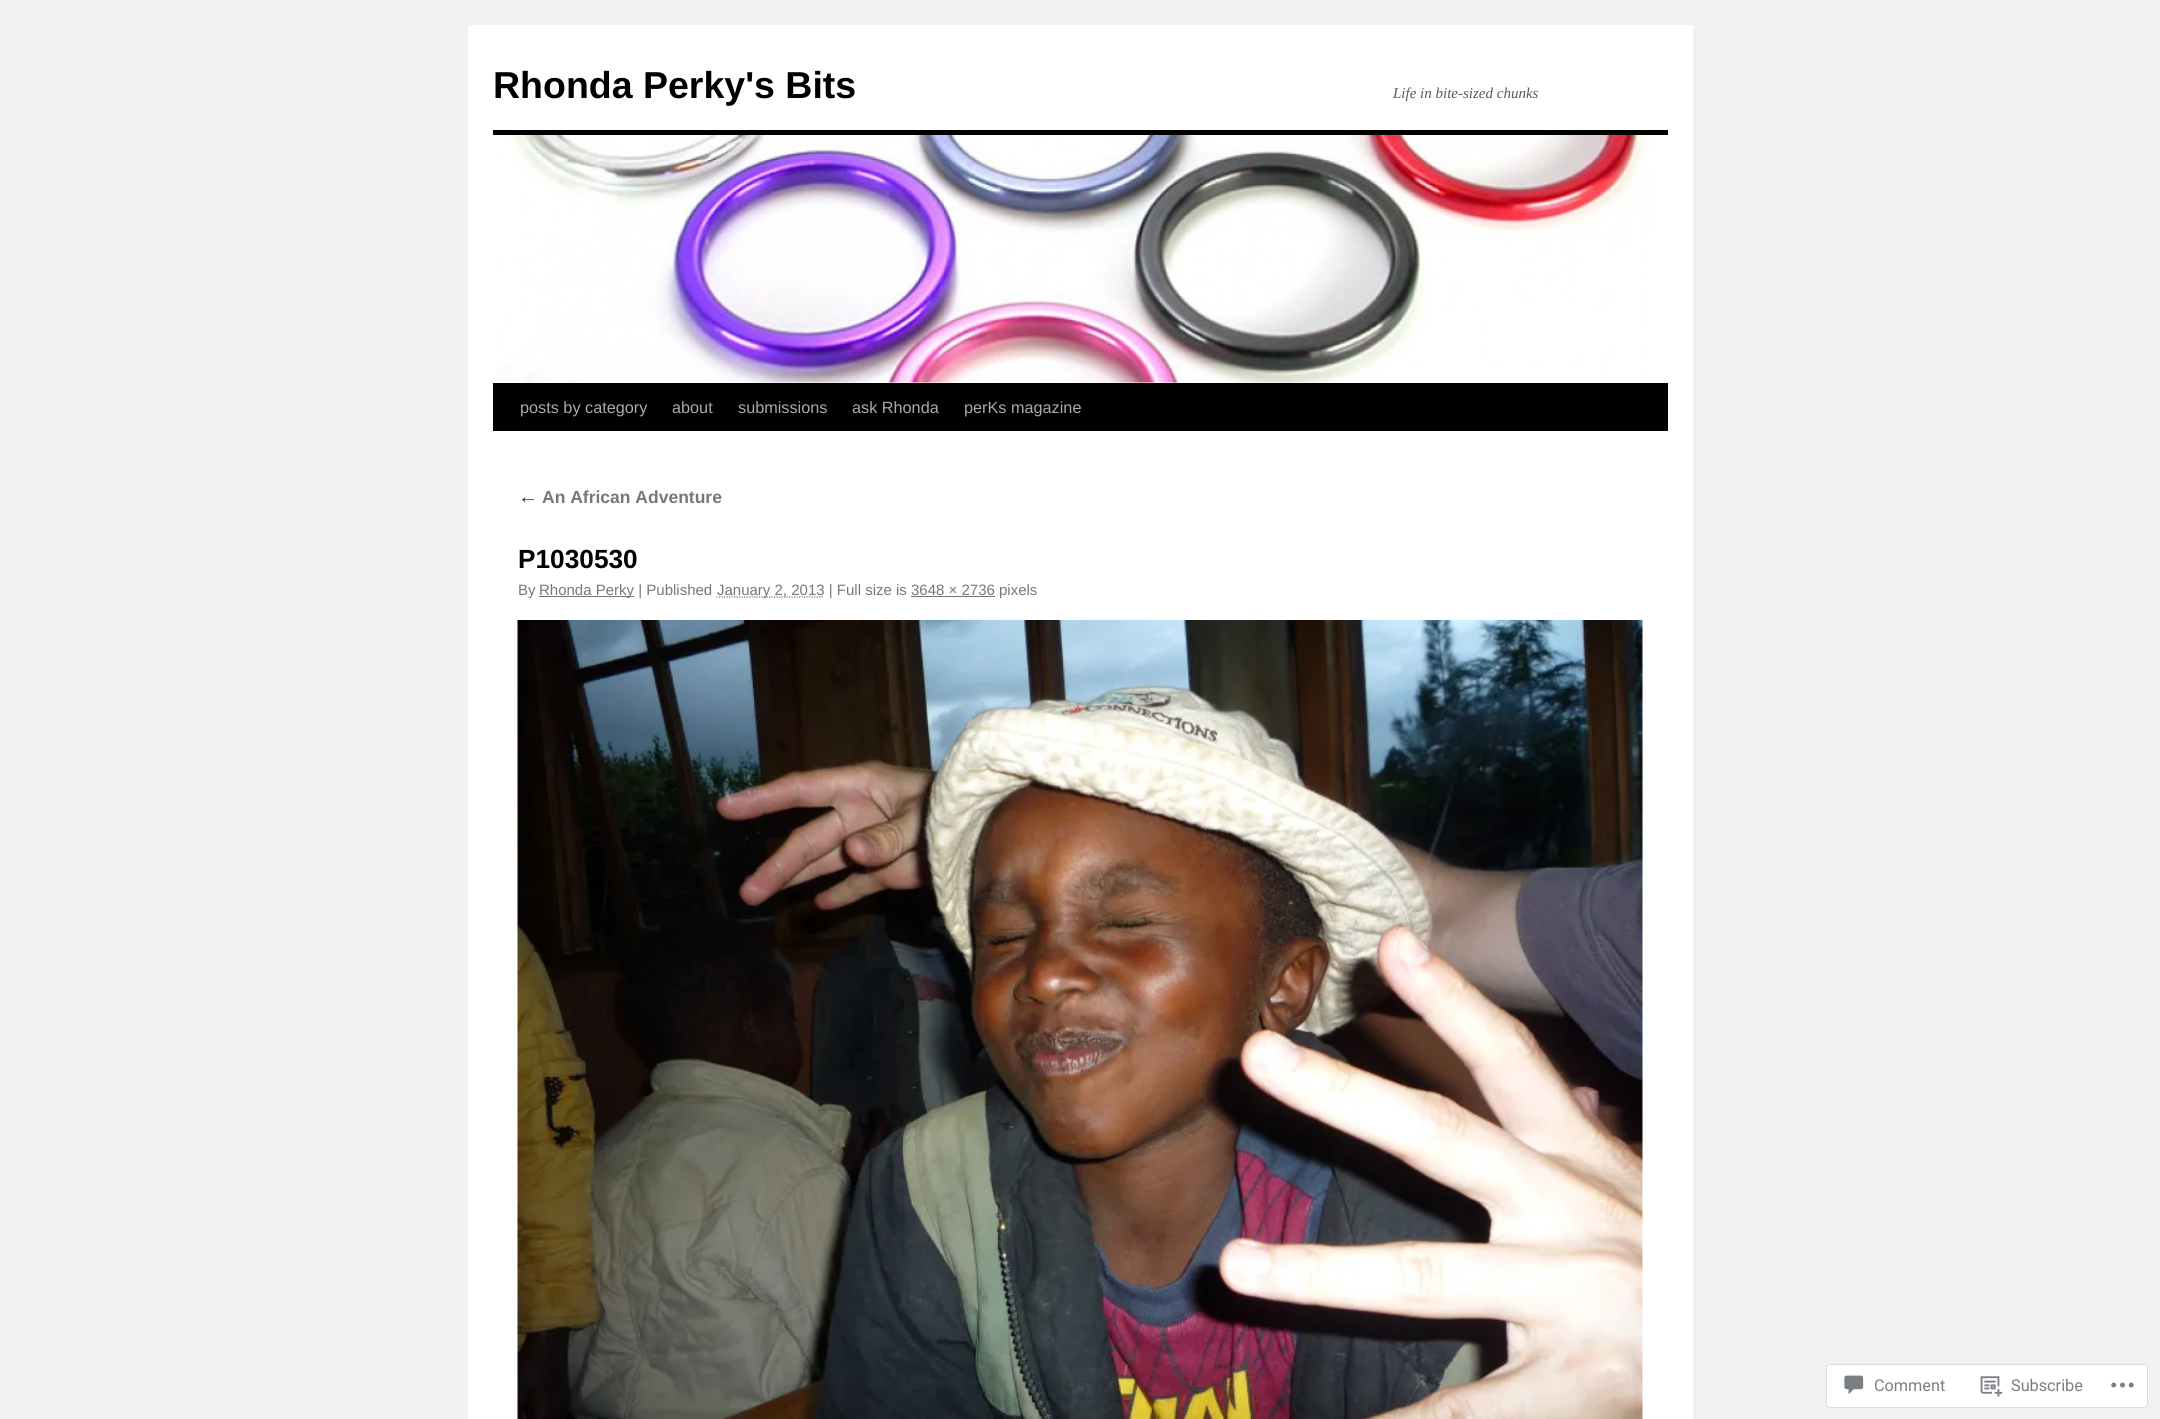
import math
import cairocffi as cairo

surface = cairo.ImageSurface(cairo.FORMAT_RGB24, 2160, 1419)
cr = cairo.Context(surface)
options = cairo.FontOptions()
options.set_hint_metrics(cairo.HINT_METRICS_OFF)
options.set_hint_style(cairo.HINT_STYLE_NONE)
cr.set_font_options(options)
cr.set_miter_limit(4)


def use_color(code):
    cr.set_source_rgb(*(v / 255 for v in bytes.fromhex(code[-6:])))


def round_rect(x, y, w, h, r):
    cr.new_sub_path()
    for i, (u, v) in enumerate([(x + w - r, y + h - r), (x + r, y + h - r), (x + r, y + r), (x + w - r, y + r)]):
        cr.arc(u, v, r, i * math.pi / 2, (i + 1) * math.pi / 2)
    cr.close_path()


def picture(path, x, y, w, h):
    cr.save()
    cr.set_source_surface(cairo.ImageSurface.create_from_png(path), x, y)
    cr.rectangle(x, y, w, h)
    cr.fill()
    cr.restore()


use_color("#f1f1f1")
cr.paint()
use_color("#ffffff")
cr.rectangle(468, 25, 1225, 1394)
cr.fill()
cr.select_font_face("Liberation Sans", cairo.FONT_SLANT_NORMAL, cairo.FONT_WEIGHT_BOLD)
cr.set_font_size(37.5)
use_color("#000000")
cr.move_to(493, 98)
cr.show_text("Rhonda Perky's Bits")
cr.select_font_face("Liberation Serif", cairo.FONT_SLANT_ITALIC)
cr.set_font_size(15)
use_color("#595959")
cr.move_to(1393, 98)
cr.show_text("Life in bite-sized chunks")
use_color("#000000")
cr.rectangle(493, 130, 1175, 5)
cr.fill()
cr.rectangle(493, 383, 1175, 48)
cr.fill()
picture("img1.png", 496, 135, 1155, 248)
cr.select_font_face("Liberation Sans")
cr.set_font_size(16.25)
use_color("#aaaaaa")
cr.move_to(520, 413)
cr.show_text("posts by category")
cr.move_to(672, 413)
cr.show_text("about")
cr.move_to(738, 413)
cr.show_text("submissions")
cr.move_to(852, 413)
cr.show_text("ask Rhonda")
cr.move_to(964, 413)
cr.show_text("perKs magazine")
cr.select_font_face("Liberation Serif", cairo.FONT_SLANT_ITALIC)
cr.set_font_size(20)
use_color("#333333")
cr.move_to(518, 503)
cr.show_text("←")
cr.select_font_face("Liberation Sans", cairo.FONT_SLANT_NORMAL, cairo.FONT_WEIGHT_BOLD)
cr.set_font_size(17.5)
use_color("#777777")
cr.move_to(542, 503)
cr.show_text("An African Adventure")
cr.set_font_size(26.25)
use_color("#000000")
cr.move_to(518, 568)
cr.show_text("P1030530")
cr.select_font_face("Liberation Sans")
cr.set_font_size(15)
use_color("#777777")
cr.move_to(518, 595)
cr.show_text("By")
cr.rectangle(539, 596, 95, 1)
cr.fill()
cr.move_to(539, 595)
cr.show_text("Rhonda Perky | Published")
cr.new_path()
cr.move_to(716.5, 597)
cr.line_to(824, 597)
cr.set_line_width(1.2)
cr.set_dash([1.25, 1.25])
cr.stroke()
cr.move_to(717, 595)
cr.show_text("January 2, 2013 | Full size is 3648 × 2736 pixels")
cr.rectangle(911, 596, 84, 1)
cr.fill()
picture("img2.png", 517, 620, 1126, 799)
use_color("#ffffff")
round_rect(1826.5, 1364.5, 321, 43, 3.5)
cr.fill_preserve()
use_color("#dcdcde")
cr.set_line_width(1)
cr.set_dash([])
cr.stroke()
picture("img3.png", 1844, 1375, 20, 20)
cr.select_font_face("Roboto")
cr.set_font_size(16.25)
use_color("#7a7e84")
cr.move_to(1874, 1391)
cr.show_text("Comment")
picture("img4.png", 1980, 1376, 23, 21)
cr.move_to(2011, 1391)
cr.show_text("Subscribe")
picture("img5.png", 2111, 1382, 23, 6)
surface.write_to_png("result.png")
